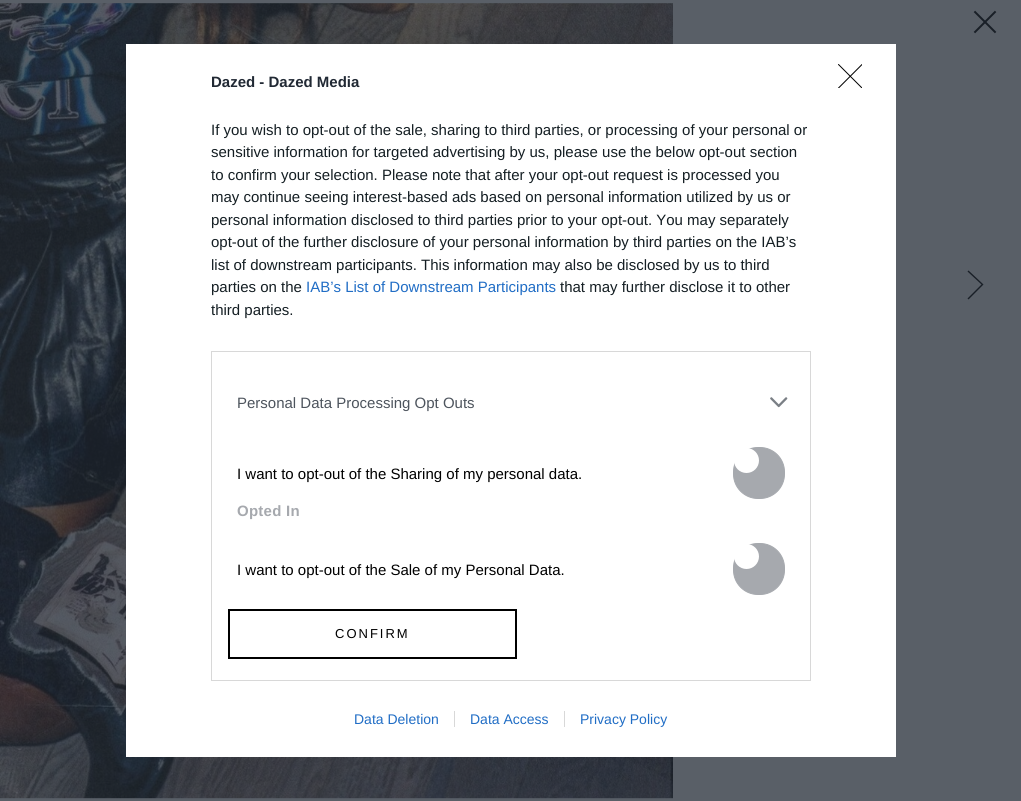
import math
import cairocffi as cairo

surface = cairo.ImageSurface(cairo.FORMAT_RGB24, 1021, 801)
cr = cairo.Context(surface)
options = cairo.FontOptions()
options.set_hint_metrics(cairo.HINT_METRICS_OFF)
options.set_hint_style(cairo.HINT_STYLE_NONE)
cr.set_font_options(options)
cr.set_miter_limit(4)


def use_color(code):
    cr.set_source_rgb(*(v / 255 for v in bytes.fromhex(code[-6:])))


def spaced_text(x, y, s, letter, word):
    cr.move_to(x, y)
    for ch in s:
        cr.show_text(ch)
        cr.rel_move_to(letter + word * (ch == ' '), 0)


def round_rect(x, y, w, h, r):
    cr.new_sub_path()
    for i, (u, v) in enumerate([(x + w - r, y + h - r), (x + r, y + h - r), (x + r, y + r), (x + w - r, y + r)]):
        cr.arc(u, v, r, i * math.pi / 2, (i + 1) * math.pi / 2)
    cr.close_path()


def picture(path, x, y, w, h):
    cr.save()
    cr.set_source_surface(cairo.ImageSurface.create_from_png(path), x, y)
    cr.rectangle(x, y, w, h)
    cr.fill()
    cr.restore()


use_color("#595f67")
cr.paint()
picture("img1.png", 0, 3, 673, 796)
picture("img2.png", 973, 10, 24, 24)
use_color("#191f27")
cr.new_path()
cr.move_to(981.5, 284.5)
cr.line_to(967.5, 271.5)
cr.line_to(968.5, 270.5)
cr.line_to(983.5, 284.5)
cr.line_to(968.5, 299.5)
cr.line_to(967.5, 298.5)
cr.close_path()
cr.fill()
use_color("#ffffff")
cr.rectangle(126, 44, 770, 713)
cr.fill()
cr.select_font_face("Liberation Sans", cairo.FONT_SLANT_NORMAL, cairo.FONT_WEIGHT_BOLD)
cr.set_font_size(15)
use_color("#212934")
cr.move_to(211, 87)
cr.show_text("Dazed - Dazed Media")
cr.select_font_face("Liberation Sans")
use_color("#141e23")
cr.move_to(211, 135)
cr.show_text("If you wish to opt-out of the sale, sharing to third parties, or processing of your personal or")
cr.move_to(211, 157)
cr.show_text("sensitive information for targeted advertising by us, please use the below opt-out section")
cr.move_to(211, 180)
cr.show_text("to confirm your selection. Please note that after your opt-out request is processed you")
cr.move_to(211, 202)
cr.show_text("may continue seeing interest-based ads based on personal information utilized by us or")
cr.move_to(211, 225)
cr.show_text("personal information disclosed to third parties prior to your opt-out. You may separately")
cr.move_to(211, 247)
cr.show_text("opt-out of the further disclosure of your personal information by third parties on the IAB’s")
cr.move_to(211, 270)
cr.show_text("list of downstream participants. This information may also be disclosed by us to third")
cr.move_to(211, 292)
cr.show_text("parties on the")
use_color("#206dc5")
cr.move_to(306, 292)
cr.show_text("IAB’s List of Downstream Participants")
use_color("#141e23")
cr.move_to(560, 292)
cr.show_text("that may further disclose it to other")
cr.move_to(211, 315)
cr.show_text("third parties.")
cr.rectangle(211.5, 351.5, 599, 329)
use_color("#d8d8d8")
cr.set_line_width(1)
cr.stroke()
use_color("#4d545d")
cr.move_to(237, 408)
cr.show_text("Personal Data Processing Opt Outs")
picture("img3.png", 770, 397, 18, 11)
use_color("#000000")
cr.move_to(237, 479)
cr.show_text("I want to opt-out of the Sharing of my personal data.")
use_color("#a6a9ae")
round_rect(733.5, 447.5, 51, 51, 24.5)
cr.fill_preserve()
cr.stroke()
use_color("#ffffff")
cr.arc(746.5, 460.5, 12.5, 0, 2 * math.pi)
cr.fill()
cr.select_font_face("Liberation Sans", cairo.FONT_SLANT_NORMAL, cairo.FONT_WEIGHT_BOLD)
use_color("#a6a9ae")
spaced_text(237, 516, "Opted In", 0.25, 0)
cr.select_font_face("Liberation Sans")
use_color("#000000")
cr.move_to(237, 575)
cr.show_text("I want to opt-out of the Sale of my Personal Data.")
use_color("#a6a9ae")
round_rect(733.5, 543.5, 51, 51, 24.5)
cr.fill_preserve()
cr.stroke()
use_color("#ffffff")
cr.arc(746.5, 556.5, 12.5, 0, 2 * math.pi)
cr.fill()
cr.rectangle(229, 610, 287, 48)
use_color("#000000")
cr.set_line_width(2)
cr.stroke()
cr.set_font_size(13)
spaced_text(335, 638, "CONFIRM", 2, 0)
cr.save()
cr.rectangle(838, 64, 24, 24)
cr.clip()
cr.new_path()
cr.move_to(838.5, 64.5)
cr.line_to(862, 88)
cr.move_to(862, 64.5)
cr.line_to(838.5, 88)
cr.set_line_width(1)
cr.set_line_cap(cairo.LINE_CAP_ROUND)
cr.set_line_join(cairo.LINE_JOIN_ROUND)
cr.stroke()
cr.restore()
cr.set_font_size(14)
use_color("#206dc5")
cr.move_to(354, 724)
cr.show_text("Data Deletion")
cr.move_to(470, 724)
cr.show_text("Data Access")
use_color("#d8d8d8")
cr.rectangle(454, 711, 1, 16)
cr.fill()
use_color("#206dc5")
cr.move_to(580, 724)
cr.show_text("Privacy Policy")
use_color("#d8d8d8")
cr.rectangle(564, 711, 1, 16)
cr.fill()
surface.write_to_png("result.png")
